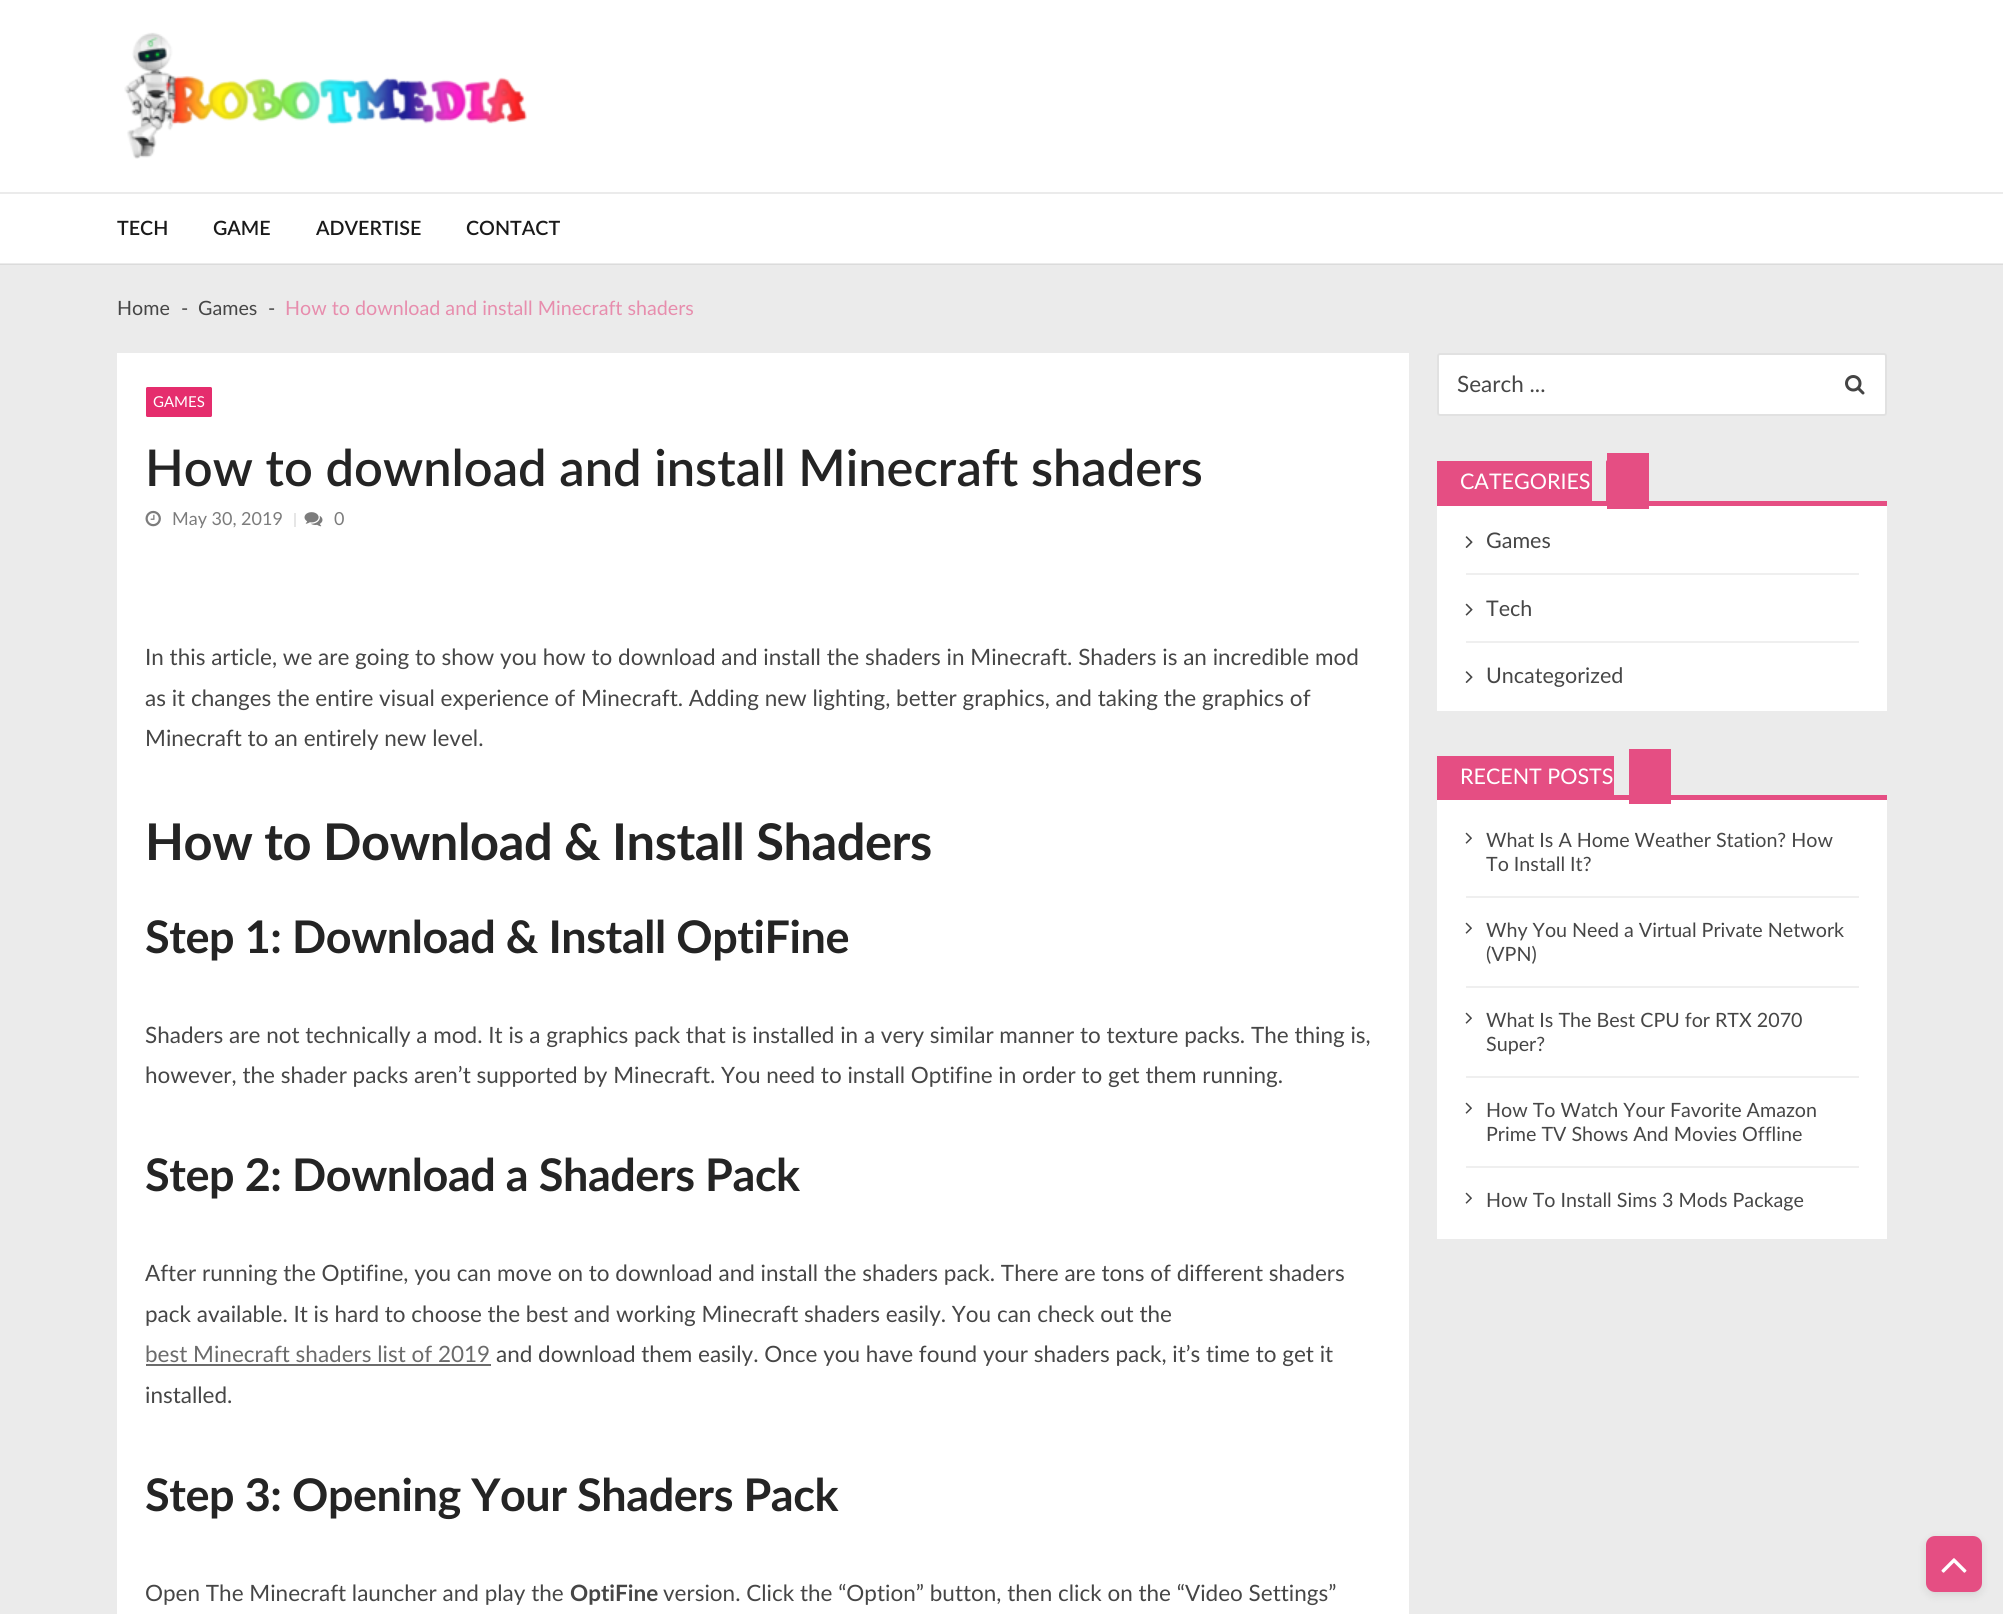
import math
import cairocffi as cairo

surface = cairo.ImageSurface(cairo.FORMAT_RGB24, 2003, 1614)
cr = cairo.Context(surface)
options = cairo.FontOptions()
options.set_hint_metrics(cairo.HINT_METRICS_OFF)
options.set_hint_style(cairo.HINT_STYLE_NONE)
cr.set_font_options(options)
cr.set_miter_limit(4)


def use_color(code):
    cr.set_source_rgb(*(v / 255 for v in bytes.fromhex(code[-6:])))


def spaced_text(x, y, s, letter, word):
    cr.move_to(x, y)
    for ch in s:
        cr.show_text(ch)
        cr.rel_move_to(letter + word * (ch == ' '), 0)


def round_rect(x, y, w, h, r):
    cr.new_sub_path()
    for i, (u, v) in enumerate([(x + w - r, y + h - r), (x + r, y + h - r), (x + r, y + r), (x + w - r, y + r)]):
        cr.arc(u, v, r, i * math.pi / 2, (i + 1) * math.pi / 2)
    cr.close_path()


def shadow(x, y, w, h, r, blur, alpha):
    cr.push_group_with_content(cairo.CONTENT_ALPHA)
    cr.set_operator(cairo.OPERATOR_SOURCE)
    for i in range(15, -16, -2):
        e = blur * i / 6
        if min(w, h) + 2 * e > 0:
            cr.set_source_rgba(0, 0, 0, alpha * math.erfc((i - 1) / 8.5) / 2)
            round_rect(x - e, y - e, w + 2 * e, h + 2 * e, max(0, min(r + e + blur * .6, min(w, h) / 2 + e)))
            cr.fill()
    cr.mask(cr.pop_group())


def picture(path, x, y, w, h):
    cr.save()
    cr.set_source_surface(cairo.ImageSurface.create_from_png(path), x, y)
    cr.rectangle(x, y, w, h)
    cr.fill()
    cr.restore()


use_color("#ebebeb")
cr.paint()
use_color("#dbdbdb")
cr.rectangle(0, 264, 2003, 1)
cr.fill()
use_color("#ffffff")
cr.rectangle(0, 0, 2003, 192)
cr.fill()
picture("img1.png", 124, 32, 403, 127)
cr.rectangle(0, 194, 2003, 69)
cr.fill()
cr.select_font_face("Lato SemiBold")
cr.set_font_size(19.7)
use_color("#1a1a1a")
cr.move_to(117, 235)
cr.show_text("TECH")
cr.move_to(213, 235)
cr.show_text("GAME")
cr.move_to(316, 235)
cr.show_text("ADVERTISE")
cr.move_to(466, 235)
cr.show_text("CONTACT")
cr.select_font_face("Lato")
use_color("#464646")
cr.move_to(117, 315)
cr.show_text("Home")
cr.move_to(181, 315)
cr.show_text("-")
cr.move_to(198, 315)
cr.show_text("Games")
cr.move_to(268, 315)
cr.show_text("-")
use_color("#e78dad")
cr.move_to(285, 315)
cr.show_text("How to download and install Minecraft shaders")
use_color("#ffffff")
cr.rectangle(117, 353, 1292, 1261)
cr.fill()
use_color("#e52d6d")
round_rect(146, 387, 66, 30, 1.5)
cr.fill()
cr.set_font_size(15)
use_color("#ffffff")
cr.move_to(153, 407)
cr.show_text("GAMES")
cr.select_font_face("Lato SemiBold")
cr.set_font_size(50.6)
use_color("#242424")
cr.move_to(145, 486)
cr.show_text("How to download and install Minecraft shaders")
picture("img2.png", 145, 510, 16, 17)
cr.select_font_face("Lato")
cr.set_font_size(18)
use_color("#7c7c7c")
cr.move_to(172, 525)
cr.show_text("May 30, 2019")
use_color("#e6e6e6")
cr.rectangle(294, 513, 2, 14)
cr.fill()
picture("img3.png", 304, 512, 19, 15)
use_color("#7c7c7c")
cr.move_to(334, 525)
cr.show_text("0")
cr.set_font_size(22.5)
use_color("#464646")
cr.move_to(145, 665)
cr.show_text("In this article, we are going to show you how to download and install the shaders in Minecraft. Shaders is an incredible mod")
cr.move_to(145, 706)
cr.show_text("as it changes the entire visual experience of Minecraft. Adding new lighting, better graphics, and taking the graphics of")
cr.move_to(145, 746)
cr.show_text("Minecraft to an entirely new level.")
cr.select_font_face("Lato", cairo.FONT_SLANT_NORMAL, cairo.FONT_WEIGHT_BOLD)
cr.set_font_size(50.6)
use_color("#242424")
spaced_text(145, 860, "How to Download & Install Shaders", -0.45, 0)
cr.set_font_size(45)
spaced_text(145, 953, "Step 1: Download & Install OptiFine", -0.45, 0)
cr.select_font_face("Lato")
cr.set_font_size(22.5)
use_color("#464646")
cr.move_to(145, 1043)
cr.show_text("Shaders are not technically a mod. It is a graphics pack that is installed in a very similar manner to texture packs. The thing is,")
cr.move_to(145, 1083)
cr.show_text("however, the shader packs aren’t supported by Minecraft. You need to install Optifine in order to get them running.")
cr.select_font_face("Lato", cairo.FONT_SLANT_NORMAL, cairo.FONT_WEIGHT_BOLD)
cr.set_font_size(45)
use_color("#242424")
spaced_text(145, 1191, "Step 2: Download a Shaders Pack", -0.45, 0)
cr.select_font_face("Lato")
cr.set_font_size(22.5)
use_color("#464646")
cr.move_to(145, 1281)
cr.show_text("After running the Optifine, you can move on to download and install the shaders pack. There are tons of different shaders")
cr.move_to(145, 1322)
cr.show_text("pack available. It is hard to choose the best and working Minecraft shaders easily. You can check out the")
use_color("#6b6b6b")
cr.move_to(145, 1362)
cr.show_text("best Minecraft shaders list of 2019")
cr.rectangle(146, 1364, 345, 2)
cr.fill()
use_color("#464646")
cr.move_to(496, 1362)
cr.show_text("and download them easily. Once you have found your shaders pack, it’s time to get it")
cr.move_to(145, 1403)
cr.show_text("installed.")
cr.select_font_face("Lato", cairo.FONT_SLANT_NORMAL, cairo.FONT_WEIGHT_BOLD)
cr.set_font_size(45)
use_color("#242424")
spaced_text(145, 1511, "Step 3: Opening Your Shaders Pack", -0.45, 0)
cr.select_font_face("Lato")
cr.set_font_size(22.5)
use_color("#464646")
cr.move_to(145, 1601)
cr.show_text("Open The Minecraft launcher and play the")
cr.select_font_face("Lato", cairo.FONT_SLANT_NORMAL, cairo.FONT_WEIGHT_BOLD)
cr.move_to(570, 1601)
cr.show_text("OptiFine")
cr.select_font_face("Lato")
cr.move_to(663, 1601)
cr.show_text("version. Click the “Option” button, then click on the “Video Settings”")
use_color("#ffffff")
round_rect(1438, 354, 448, 61, 2)
cr.fill_preserve()
use_color("#e1e1e1")
cr.stroke()
use_color("#464646")
cr.move_to(1457, 392)
cr.show_text("Search ...")
picture("img4.png", 1845, 375, 20, 20)
use_color("#e54e83")
cr.rectangle(1437, 461, 155, 40)
cr.fill()
cr.rectangle(1437, 501, 450, 5)
cr.fill()
use_color("#ffffff")
cr.rectangle(1437, 506, 450, 205)
cr.fill()
use_color("#e54e83")
cr.rectangle(1607, 453, 42, 56)
cr.fill()
cr.set_font_size(21.5)
use_color("#ffffff")
cr.move_to(1460, 489)
cr.show_text("CATEGORIES")
use_color("#e54e83")
cr.new_path()
cr.move_to(1606, 501)
cr.line_to(1606, 460)
cr.line_to(1634, 501)
cr.close_path()
cr.fill()
use_color("#efefef")
cr.rectangle(1466, 573, 393, 2)
cr.fill()
picture("img5.png", 1465, 536, 8, 12)
use_color("#464646")
cr.move_to(1486, 548)
cr.show_text("Games")
use_color("#efefef")
cr.rectangle(1466, 641, 393, 2)
cr.fill()
picture("img6.png", 1465, 603, 8, 13)
use_color("#464646")
cr.move_to(1486, 616)
cr.show_text("Tech")
picture("img5.png", 1465, 671, 8, 12)
cr.move_to(1486, 683)
cr.show_text("Uncategorized")
use_color("#e54e83")
cr.rectangle(1437, 756, 177, 39)
cr.fill()
use_color("#ffffff")
cr.move_to(1460, 784)
cr.show_text("RECENT POSTS")
use_color("#e54e83")
cr.rectangle(1437, 795, 450, 5)
cr.fill()
use_color("#ffffff")
cr.rectangle(1437, 800, 450, 439)
cr.fill()
use_color("#e54e83")
cr.rectangle(1629, 749, 42, 55)
cr.fill()
use_color("#efefef")
cr.rectangle(1466, 896, 393, 2)
cr.fill()
picture("img7.png", 1465, 832, 7, 12)
cr.set_font_size(19.7)
use_color("#464646")
cr.move_to(1486, 847)
cr.show_text("What Is A Home Weather Station? How")
cr.move_to(1486, 871)
cr.show_text("To Install It?")
use_color("#efefef")
cr.rectangle(1466, 986, 393, 2)
cr.fill()
picture("img7.png", 1465, 922, 7, 12)
use_color("#464646")
cr.move_to(1486, 937)
cr.show_text("Why You Need a Virtual Private Network")
cr.move_to(1486, 961)
cr.show_text("(VPN)")
use_color("#efefef")
cr.rectangle(1466, 1076, 393, 2)
cr.fill()
picture("img7.png", 1465, 1012, 7, 12)
use_color("#464646")
cr.move_to(1486, 1027)
cr.show_text("What Is The Best CPU for RTX 2070")
cr.move_to(1486, 1051)
cr.show_text("Super?")
use_color("#efefef")
cr.rectangle(1466, 1166, 393, 2)
cr.fill()
picture("img7.png", 1465, 1102, 7, 12)
use_color("#464646")
cr.move_to(1486, 1117)
cr.show_text("How To Watch Your Favorite Amazon")
cr.move_to(1486, 1141)
cr.show_text("Prime TV Shows And Movies Offline")
picture("img7.png", 1465, 1192, 7, 12)
cr.move_to(1486, 1207)
cr.show_text("How To Install Sims 3 Mods Package")
use_color("#000000")
shadow(1926, 1539, 56, 56, 9, 4.5, 0.1)
use_color("#e54e83")
round_rect(1926, 1536, 56, 56, 9)
cr.fill()
picture("img8.png", 1941, 1558, 26, 15)
surface.write_to_png("result.png")
